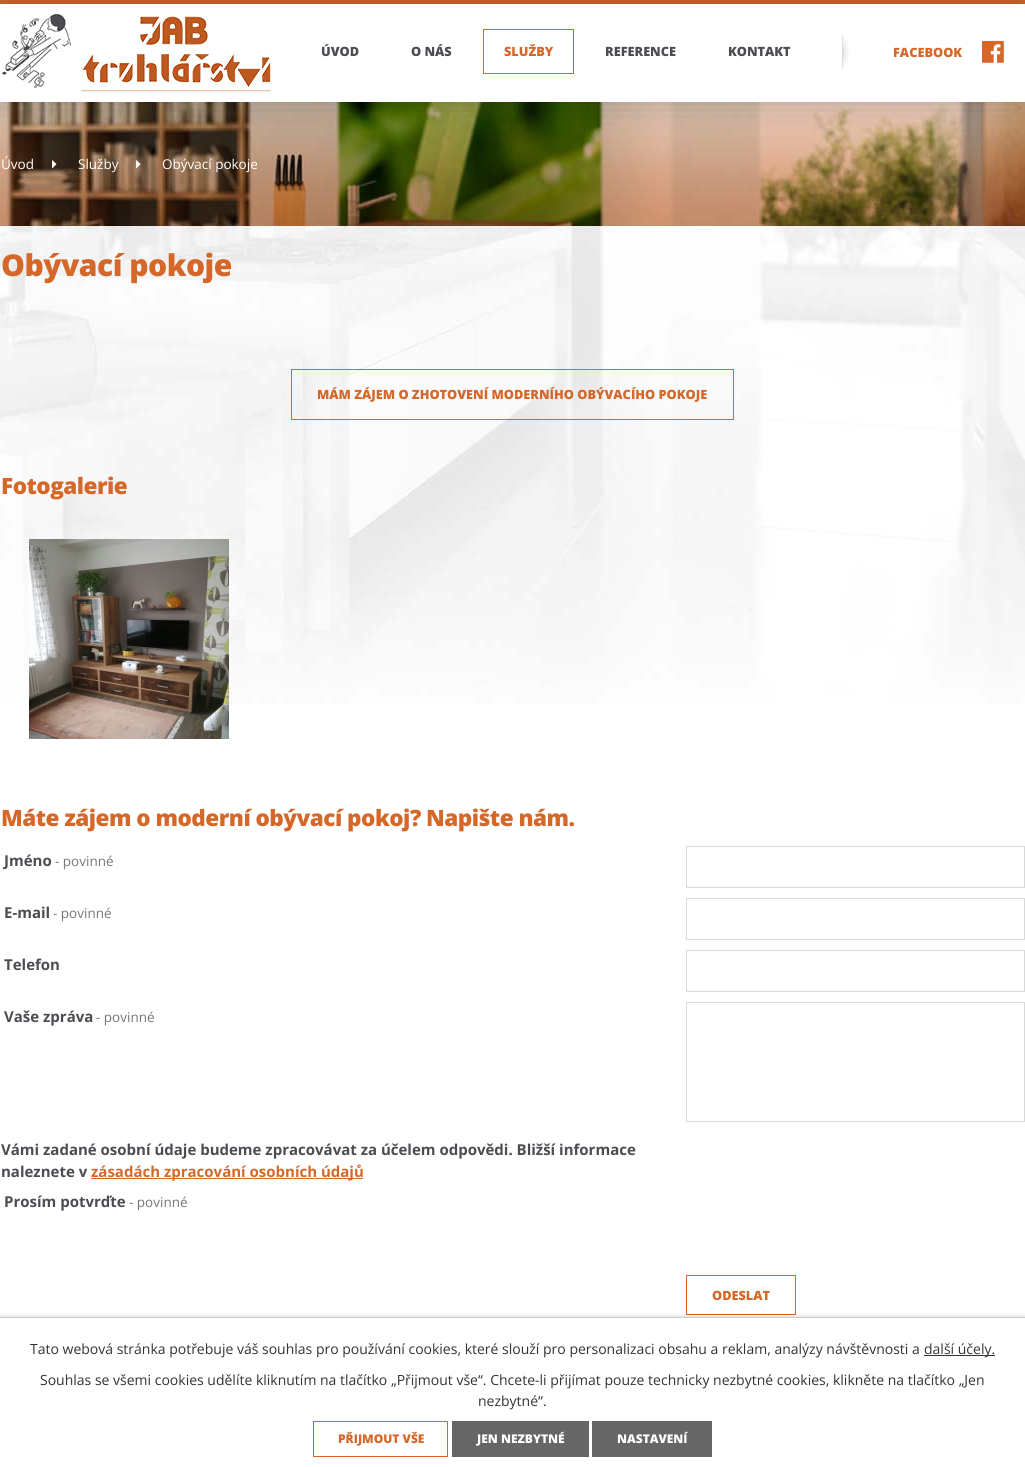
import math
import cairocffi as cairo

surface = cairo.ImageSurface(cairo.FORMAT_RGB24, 1025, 1467)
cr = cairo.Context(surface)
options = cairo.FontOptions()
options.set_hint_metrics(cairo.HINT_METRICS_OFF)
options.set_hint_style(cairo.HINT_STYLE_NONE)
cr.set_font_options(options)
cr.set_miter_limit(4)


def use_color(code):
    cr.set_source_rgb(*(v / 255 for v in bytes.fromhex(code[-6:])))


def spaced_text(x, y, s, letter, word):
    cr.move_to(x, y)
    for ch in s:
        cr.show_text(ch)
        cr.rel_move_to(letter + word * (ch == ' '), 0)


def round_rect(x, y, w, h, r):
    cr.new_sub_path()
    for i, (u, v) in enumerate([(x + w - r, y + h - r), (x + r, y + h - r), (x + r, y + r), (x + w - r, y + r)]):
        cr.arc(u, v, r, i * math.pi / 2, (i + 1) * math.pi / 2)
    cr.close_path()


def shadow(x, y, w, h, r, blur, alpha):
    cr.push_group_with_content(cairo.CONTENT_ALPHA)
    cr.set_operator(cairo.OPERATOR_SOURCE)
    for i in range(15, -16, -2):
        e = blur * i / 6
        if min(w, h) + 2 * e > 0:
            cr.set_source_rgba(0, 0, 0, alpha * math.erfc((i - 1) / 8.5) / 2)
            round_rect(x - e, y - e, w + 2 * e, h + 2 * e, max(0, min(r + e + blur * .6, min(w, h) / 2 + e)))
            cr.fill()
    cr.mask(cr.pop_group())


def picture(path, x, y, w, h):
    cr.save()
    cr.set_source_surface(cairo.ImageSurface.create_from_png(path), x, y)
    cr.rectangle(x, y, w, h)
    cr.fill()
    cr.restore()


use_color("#ffffff")
cr.paint()
picture("img1.png", 0, 102, 1025, 602)
use_color("#d56829")
cr.rectangle(0, 0, 1025, 4)
cr.fill()
use_color("#000000")
shadow(0, 4, 1025, 98, 0, 20, 0.25)
use_color("#ffffff")
cr.rectangle(0, 4, 1025, 98)
cr.fill()
picture("img2.png", 2, 14, 271, 78)
cr.select_font_face("Open Sans ExtraBold")
cr.set_font_size(12.75)
use_color("#4c4c52")
cr.move_to(321, 56)
cr.show_text("ÚVOD")
cr.move_to(411, 56)
cr.show_text("O NÁS")
cr.rectangle(483.5, 29.5, 90, 44)
use_color("#d56829")
cr.set_line_width(1)
cr.stroke()
cr.move_to(504, 56)
cr.show_text("SLUŽBY")
use_color("#4c4c52")
cr.move_to(605, 56)
cr.show_text("REFERENCE")
cr.move_to(728, 56)
cr.show_text("KONTAKT")
picture("img3.png", 842, 35, 7, 34)
use_color("#d56829")
cr.move_to(893, 57)
cr.show_text("FACEBOOK")
picture("img4.png", 982, 40, 22, 23)
cr.select_font_face("Open Sans")
cr.set_font_size(13.5)
use_color("#ffffff")
cr.move_to(1, 169)
cr.show_text("Úvod")
picture("img5.png", 52, 160, 5, 8)
cr.move_to(78, 169)
cr.show_text("Služby")
picture("img6.png", 136, 160, 5, 8)
cr.move_to(162, 169)
cr.show_text("Obývací pokoje")
cr.select_font_face("Open Sans ExtraBold")
cr.set_font_size(30)
use_color("#d56829")
spaced_text(1, 276, "Obývací pokoje", -0.5, 0)
cr.rectangle(291.5, 369.5, 442, 50)
cr.stroke()
cr.set_font_size(12.75)
cr.move_to(317, 399)
cr.show_text("MÁM ZÁJEM O ZHOTOVENÍ MODERNÍHO OBÝVACÍHO POKOJE")
cr.set_font_size(22.5)
spaced_text(1, 494, "Fotogalerie", -0.5, 0)
picture("img7.png", 29, 539, 200, 200)
spaced_text(1, 826, "Máte zájem o moderní obývací pokoj? Napište nám.", -0.5, 0)
cr.select_font_face("Open Sans", cairo.FONT_SLANT_NORMAL, cairo.FONT_WEIGHT_BOLD)
cr.set_font_size(15)
use_color("#4c4c52")
cr.move_to(4, 866)
cr.show_text("Jméno")
cr.select_font_face("Open Sans")
cr.set_font_size(13.5)
use_color("#777777")
cr.move_to(55, 866)
cr.show_text("- povinné")
cr.rectangle(686.5, 846.5, 338, 41)
use_color("#d9d9d9")
cr.stroke()
cr.select_font_face("Open Sans", cairo.FONT_SLANT_NORMAL, cairo.FONT_WEIGHT_BOLD)
cr.set_font_size(15)
use_color("#4c4c52")
cr.move_to(4, 918)
cr.show_text("E-mail")
cr.select_font_face("Open Sans")
cr.set_font_size(13.5)
use_color("#777777")
cr.move_to(53, 918)
cr.show_text("- povinné")
cr.rectangle(686.5, 898.5, 338, 41)
use_color("#d9d9d9")
cr.stroke()
cr.select_font_face("Open Sans", cairo.FONT_SLANT_NORMAL, cairo.FONT_WEIGHT_BOLD)
cr.set_font_size(15)
use_color("#4c4c52")
cr.move_to(4, 970)
cr.show_text("Telefon")
cr.rectangle(686.5, 950.5, 338, 41)
use_color("#d9d9d9")
cr.stroke()
use_color("#4c4c52")
cr.move_to(4, 1022)
cr.show_text("Vaše zpráva")
cr.select_font_face("Open Sans")
cr.set_font_size(13.5)
use_color("#777777")
cr.move_to(96, 1022)
cr.show_text("- povinné")
cr.rectangle(686.5, 1002.5, 338, 119)
use_color("#d9d9d9")
cr.stroke()
cr.select_font_face("Open Sans", cairo.FONT_SLANT_NORMAL, cairo.FONT_WEIGHT_BOLD)
cr.set_font_size(15)
use_color("#4c4c52")
cr.move_to(1, 1155)
cr.show_text("Vámi zadané osobní údaje budeme zpracovávat za účelem odpovědi. Bližší informace")
cr.move_to(1, 1177)
cr.show_text("naleznete v")
use_color("#d56829")
cr.rectangle(91, 1178, 272, 1)
cr.fill()
cr.move_to(91, 1177)
cr.show_text("zásadách zpracování osobních údajů")
use_color("#4c4c52")
cr.move_to(4, 1207)
cr.show_text("Prosím potvrďte")
cr.select_font_face("Open Sans")
cr.set_font_size(13.5)
use_color("#777777")
cr.move_to(129, 1207)
cr.show_text("- povinné")
cr.rectangle(686.5, 1275.5, 109, 39)
use_color("#d56829")
cr.stroke()
cr.select_font_face("Open Sans ExtraBold")
cr.set_font_size(12.75)
cr.move_to(712, 1300)
cr.show_text("ODESLAT")
use_color("#000000")
shadow(0, 1317, 1025, 150, 0, 2.5, 0.2)
use_color("#ffffff")
cr.rectangle(0, 1318, 1025, 149)
cr.fill()
use_color("#cccccc")
cr.rectangle(0, 1317, 1025, 1)
cr.fill()
cr.select_font_face("Open Sans")
cr.set_font_size(14)
use_color("#333333")
cr.move_to(30, 1354)
cr.show_text("Tato webová stránka potřebuje váš souhlas pro používání cookies, které slouží pro personalizaci obsahu a reklam, analýzy návštěvnosti a")
cr.rectangle(924, 1355, 71, 1)
cr.fill()
cr.move_to(924, 1354)
cr.show_text("další účely.")
cr.move_to(40, 1385)
cr.show_text("Souhlas se všemi cookies udělíte kliknutím na tlačítko „Přijmout vše“. Chcete-li přijímat pouze technicky nezbytné cookies, klikněte na tlačítko „Jen")
cr.move_to(478, 1406)
cr.show_text("nezbytné“.")
cr.rectangle(313.5, 1421.5, 134, 35)
use_color("#d56829")
cr.stroke()
cr.select_font_face("Open Sans ExtraBold")
cr.set_font_size(12)
cr.move_to(338, 1443)
cr.show_text("PŘIJMOUT VŠE")
use_color("#666666")
cr.rectangle(452, 1421, 137, 36)
cr.fill()
use_color("#ffffff")
cr.move_to(477, 1443)
cr.show_text("JEN NEZBYTNÉ")
use_color("#666666")
cr.rectangle(592, 1421, 120, 36)
cr.fill()
use_color("#ffffff")
cr.move_to(617, 1443)
cr.show_text("NASTAVENÍ")
surface.write_to_png("result.png")
